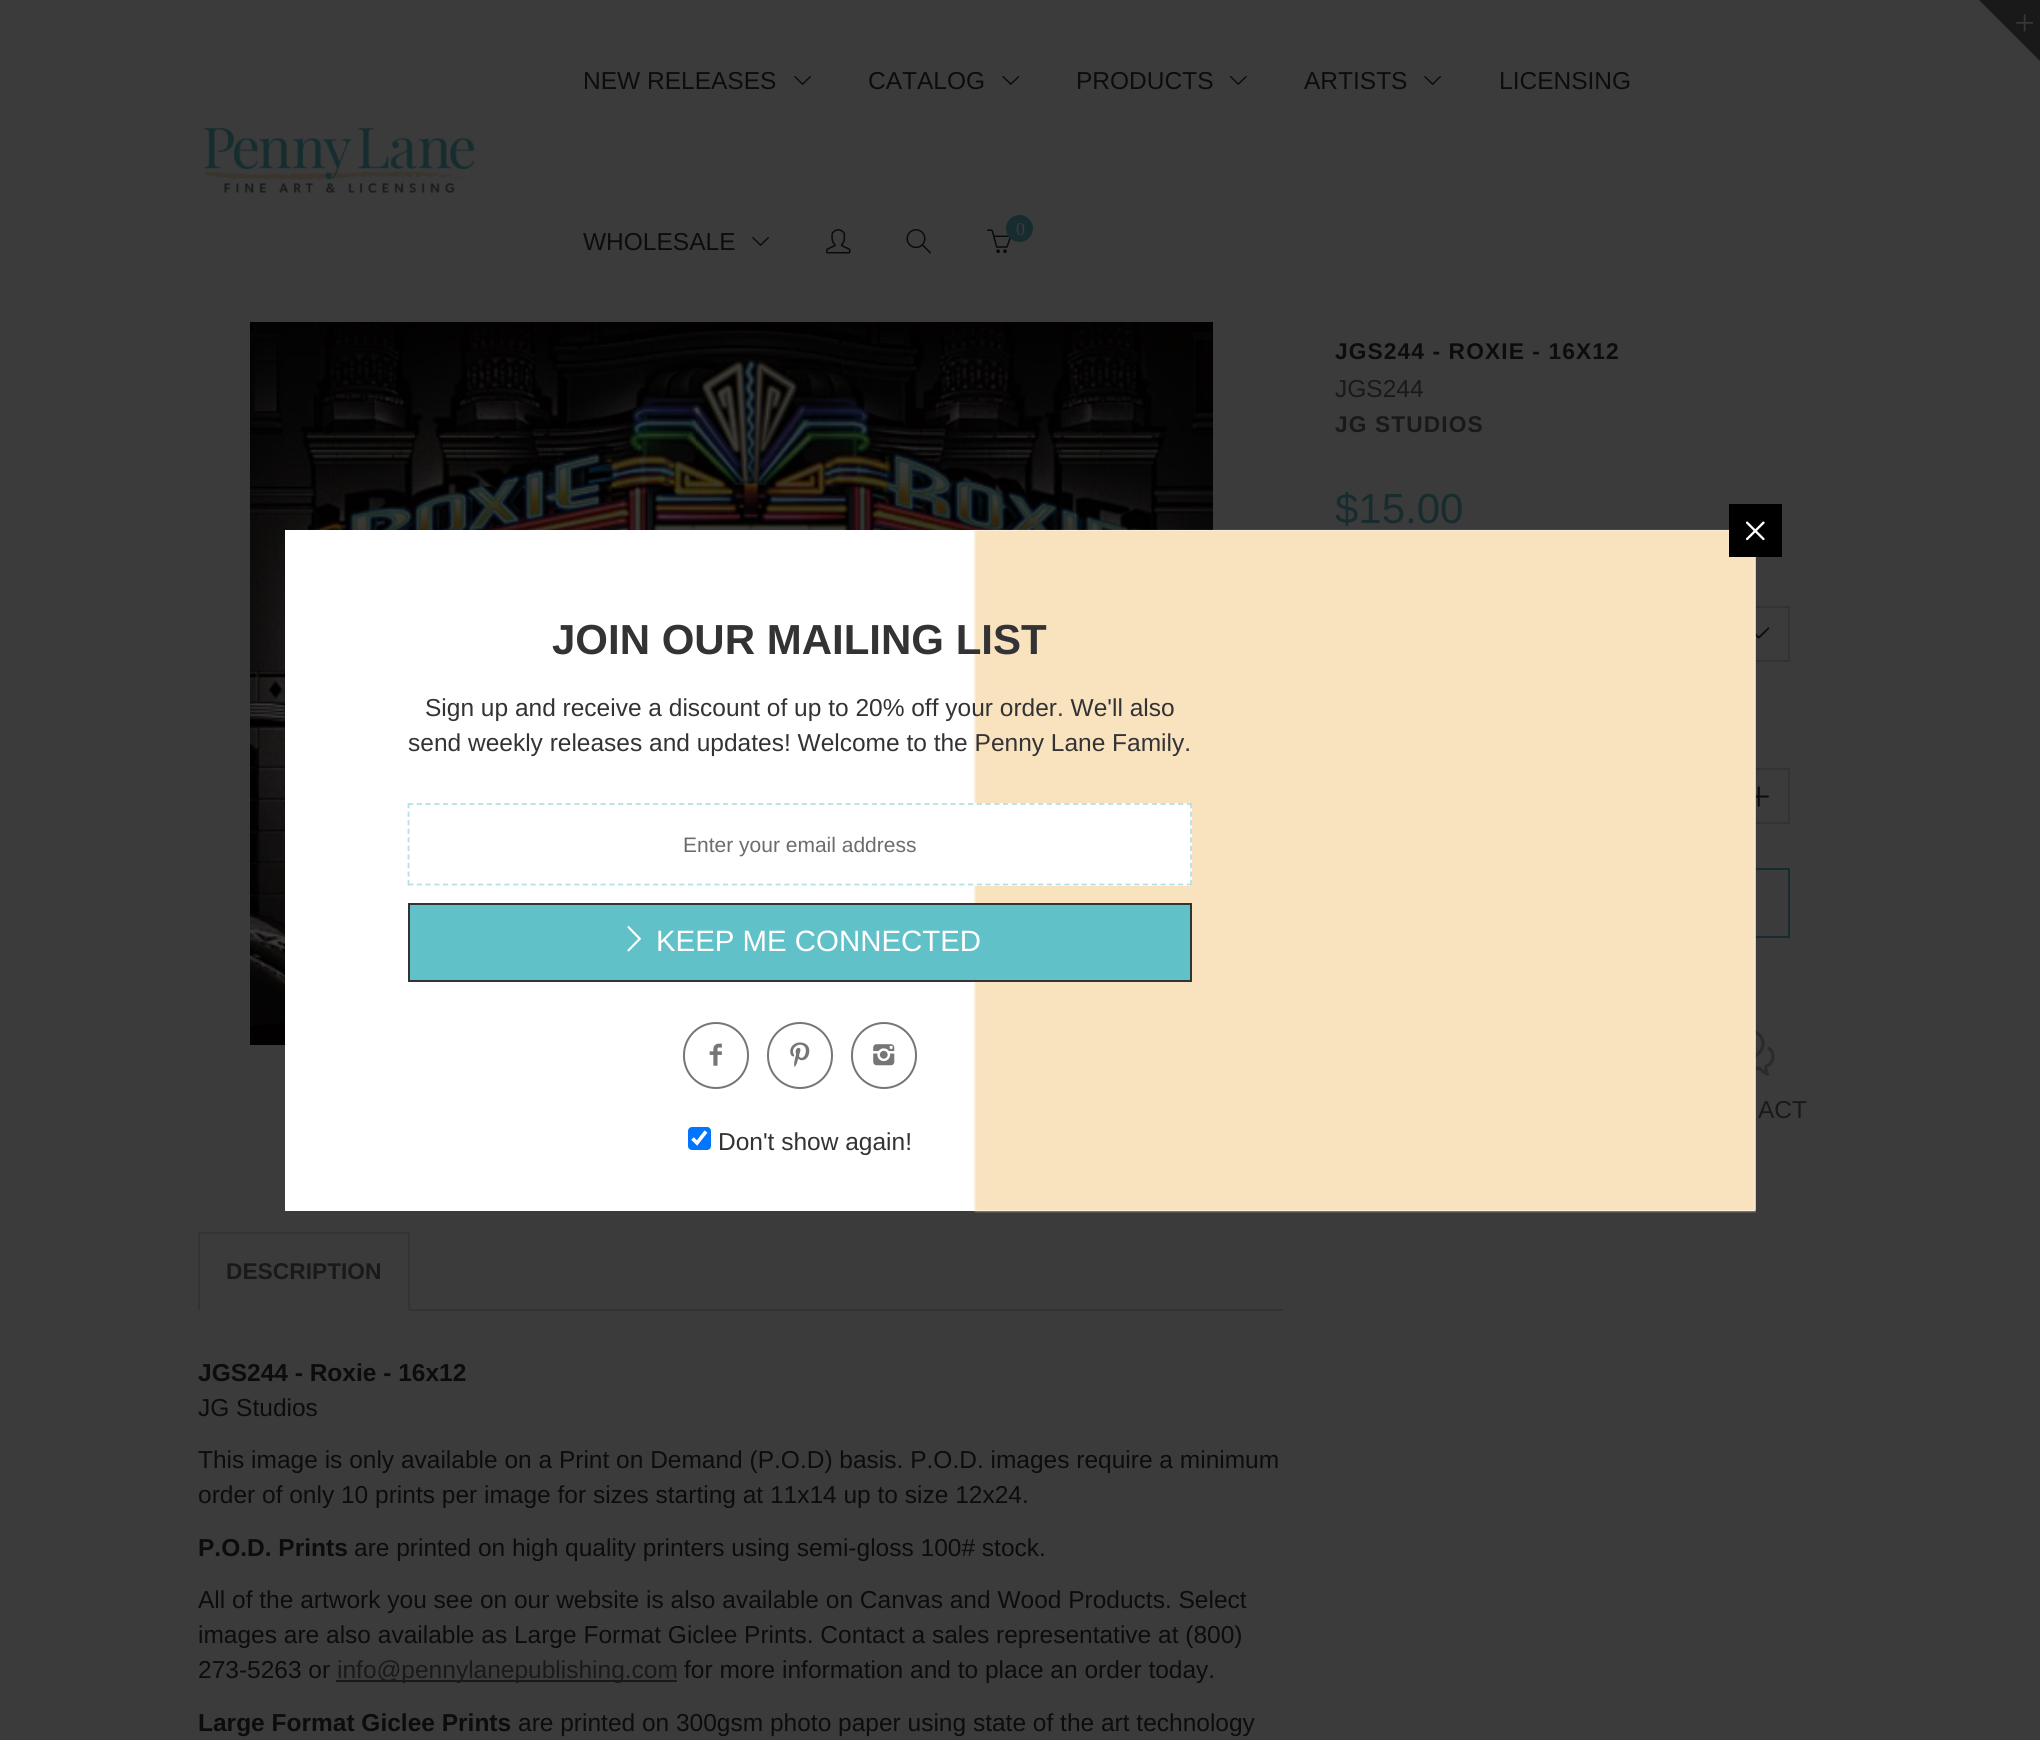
import math
import cairocffi as cairo

surface = cairo.ImageSurface(cairo.FORMAT_RGB24, 2040, 1740)
cr = cairo.Context(surface)
options = cairo.FontOptions()
options.set_hint_metrics(cairo.HINT_METRICS_OFF)
options.set_hint_style(cairo.HINT_STYLE_NONE)
cr.set_font_options(options)
cr.set_miter_limit(4)


def use_color(code):
    cr.set_source_rgb(*(v / 255 for v in bytes.fromhex(code[-6:])))


def spaced_text(x, y, s, letter, word):
    cr.move_to(x, y)
    for ch in s:
        cr.show_text(ch)
        cr.rel_move_to(letter + word * (ch == ' '), 0)


def round_rect(x, y, w, h, r):
    cr.new_sub_path()
    for i, (u, v) in enumerate([(x + w - r, y + h - r), (x + r, y + h - r), (x + r, y + r), (x + w - r, y + r)]):
        cr.arc(u, v, r, i * math.pi / 2, (i + 1) * math.pi / 2)
    cr.close_path()


def picture(path, x, y, w, h):
    cr.save()
    cr.set_source_surface(cairo.ImageSurface.create_from_png(path), x, y)
    cr.rectangle(x, y, w, h)
    cr.fill()
    cr.restore()


use_color("#3b3b3b")
cr.paint()
use_color("#191919")
cr.new_path()
cr.move_to(1979, 0)
cr.line_to(2040, 0)
cr.line_to(2040, 61)
cr.close_path()
cr.fill()
picture("img1.png", 2016, 14, 18, 18)
picture("img2.png", 203, 127, 272, 66)
cr.select_font_face("Liberation Sans")
cr.set_font_size(24.5)
use_color("#0c0c0c")
cr.move_to(583, 89)
cr.show_text("NEW RELEASES")
picture("img3.png", 794, 76, 17, 9)
cr.move_to(868, 89)
cr.show_text("CATALOG")
picture("img4.png", 1002, 76, 18, 9)
cr.move_to(1076, 89)
cr.show_text("PRODUCTS")
picture("img5.png", 1229, 76, 18, 9)
cr.move_to(1304, 89)
cr.show_text("ARTISTS")
picture("img3.png", 1424, 76, 17, 9)
cr.move_to(1499, 89)
cr.show_text("LICENSING")
cr.move_to(583, 250)
cr.show_text("WHOLESALE")
picture("img3.png", 752, 237, 17, 9)
picture("img6.png", 826, 229, 25, 25)
picture("img7.png", 906, 229, 25, 25)
picture("img8.png", 987, 229, 24, 25)
use_color("#162c2e")
cr.arc(1019.5, 228.5, 13.5, 0, 2 * math.pi)
cr.fill()
cr.select_font_face("Liberation Serif")
cr.set_font_size(18)
use_color("#3b3b3b")
cr.move_to(1016, 235)
cr.show_text("0")
picture("img9.png", 250, 322, 963, 723)
cr.select_font_face("Liberation Sans", cairo.FONT_SLANT_NORMAL, cairo.FONT_WEIGHT_BOLD)
cr.set_font_size(22.75)
use_color("#0c0c0c")
spaced_text(1335, 359, "JGS244 - ROXIE - 16X12", 1.1, 0)
cr.select_font_face("Liberation Sans")
cr.set_font_size(24.5)
use_color("#191919")
cr.move_to(1335, 397)
cr.show_text("JGS244")
cr.select_font_face("Liberation Sans", cairo.FONT_SLANT_NORMAL, cairo.FONT_WEIGHT_BOLD)
cr.set_font_size(22.75)
spaced_text(1335, 432, "JG STUDIOS", 1.1, 0)
cr.select_font_face("Liberation Sans")
cr.set_font_size(42)
use_color("#162c2e")
cr.move_to(1335, 523)
cr.show_text("$15.00")
cr.rectangle(1336, 607, 453, 54)
use_color("#333333")
cr.stroke()
picture("img10.png", 1755, 627, 15, 12)
cr.rectangle(1336, 769, 453, 54)
cr.stroke()
picture("img11.png", 1755, 786, 14, 21)
cr.rectangle(1336, 869, 453, 68)
use_color("#162c2e")
cr.stroke()
picture("img12.png", 1755, 1030, 20, 46)
cr.set_font_size(24.5)
use_color("#191919")
cr.move_to(1758, 1118)
cr.show_text("ACT")
use_color("#333333")
cr.rectangle(410, 1309, 873, 2)
cr.fill()
cr.rectangle(198, 1232, 212, 2)
cr.fill()
cr.new_path()
cr.move_to(410, 1232)
cr.line_to(410, 1311)
cr.line_to(408, 1309)
cr.line_to(408, 1234)
cr.close_path()
cr.fill()
cr.new_path()
cr.move_to(198, 1311)
cr.line_to(198, 1232)
cr.line_to(200, 1234)
cr.line_to(200, 1309)
cr.close_path()
cr.fill()
cr.select_font_face("Liberation Sans", cairo.FONT_SLANT_NORMAL, cairo.FONT_WEIGHT_BOLD)
cr.set_font_size(22.75)
use_color("#191919")
cr.move_to(226, 1279)
cr.show_text("DESCRIPTION")
cr.set_font_size(24.5)
use_color("#0c0c0c")
cr.move_to(198, 1381)
cr.show_text("JGS244 - Roxie - 16x12")
cr.select_font_face("Liberation Sans")
cr.move_to(198, 1416)
cr.show_text("JG Studios")
cr.move_to(198, 1468)
cr.show_text("This image is only available on a Print on Demand (P.O.D) basis. P.O.D. images require a minimum")
cr.move_to(198, 1503)
cr.show_text("order of only 10 prints per image for sizes starting at 11x14 up to size 12x24.")
cr.select_font_face("Liberation Sans", cairo.FONT_SLANT_NORMAL, cairo.FONT_WEIGHT_BOLD)
cr.move_to(198, 1556)
cr.show_text("P.O.D. Prints")
cr.select_font_face("Liberation Sans")
cr.move_to(354, 1556)
cr.show_text("are printed on high quality printers using semi-gloss 100# stock.")
cr.move_to(198, 1608)
cr.show_text("All of the artwork you see on our website is also available on Canvas and Wood Products. Select")
cr.move_to(198, 1643)
cr.show_text("images are also available as Large Format Giclee Prints. Contact a sales representative at (800)")
cr.move_to(198, 1678)
cr.show_text("273-5263 or")
use_color("#191919")
cr.rectangle(336, 1680, 341, 2)
cr.fill()
cr.move_to(337, 1678)
cr.show_text("info@pennylanepublishing.com")
use_color("#0c0c0c")
cr.move_to(684, 1678)
cr.show_text("for more information and to place an order today.")
cr.select_font_face("Liberation Sans", cairo.FONT_SLANT_NORMAL, cairo.FONT_WEIGHT_BOLD)
cr.move_to(198, 1731)
cr.show_text("Large Format Giclee Prints")
cr.select_font_face("Liberation Sans")
cr.move_to(518, 1731)
cr.show_text("are printed on 300gsm photo paper using state of the art technology")
use_color("#ffffff")
cr.rectangle(285, 530, 1470, 681)
cr.fill()
picture("img13.png", 973, 529, 783, 684)
use_color("#000000")
cr.rectangle(1729, 504, 53, 53)
cr.fill()
picture("img14.png", 1745, 521, 20, 20)
cr.select_font_face("Liberation Sans", cairo.FONT_SLANT_NORMAL, cairo.FONT_WEIGHT_BOLD)
cr.set_font_size(42)
use_color("#333234")
cr.move_to(552, 654)
cr.show_text("JOIN OUR MAILING LIST")
cr.select_font_face("Liberation Sans")
cr.set_font_size(24.5)
cr.move_to(425, 716)
cr.show_text("Sign up and receive a discount of up to 20% off your order. We'll also")
cr.move_to(408, 751)
cr.show_text("send weekly releases and updates! Welcome to the Penny Lane Family.")
use_color("#ffffff")
cr.rectangle(973, 803, 219, 83)
cr.fill()
cr.new_path()
cr.move_to(408, 804)
cr.line_to(1192, 804)
use_color("#b6e0e3")
cr.set_line_width(1.8)
cr.set_dash([5.25, 3.5])
cr.stroke()
cr.new_path()
cr.move_to(1191, 803)
cr.line_to(1191, 885.5)
cr.set_dash([5.25, 3.31])
cr.stroke()
cr.new_path()
cr.move_to(408, 884.5)
cr.line_to(1192, 884.5)
cr.set_dash([5.25, 3.5])
cr.stroke()
cr.new_path()
cr.move_to(408.5, 803)
cr.line_to(408.5, 885.5)
cr.set_dash([5.25, 3.31])
cr.stroke()
cr.set_font_size(21)
use_color("#6b6c6e")
cr.move_to(683, 852)
cr.show_text("Enter your email address")
use_color("#61c1c9")
cr.rectangle(409, 904, 782, 77)
cr.fill_preserve()
use_color("#333234")
cr.set_line_width(2)
cr.set_dash([])
cr.stroke()
picture("img15.png", 627, 926, 14, 26)
cr.set_font_size(29.4)
use_color("#ffffff")
cr.move_to(656, 951)
cr.show_text("KEEP ME CONNECTED")
round_rect(684, 1023, 64, 65, 32)
use_color("#767676")
cr.stroke()
picture("img16.png", 709, 1043, 13, 23)
round_rect(768, 1023, 64, 65, 32)
cr.stroke()
picture("img17.png", 790, 1042, 20, 25)
round_rect(852, 1023, 64, 65, 32)
cr.stroke()
picture("img18.png", 873, 1044, 22, 22)
use_color("#0075ff")
round_rect(688, 1127, 23, 23, 4)
cr.fill()
cr.new_path()
cr.move_to(692.5, 1138.5)
cr.line_to(697, 1143)
cr.line_to(706, 1131.5)
use_color("#ffffff")
cr.set_line_width(3.6)
cr.stroke()
cr.set_font_size(24.5)
use_color("#333234")
cr.move_to(718, 1150)
cr.show_text("Don't show again!")
surface.write_to_png("result.png")
